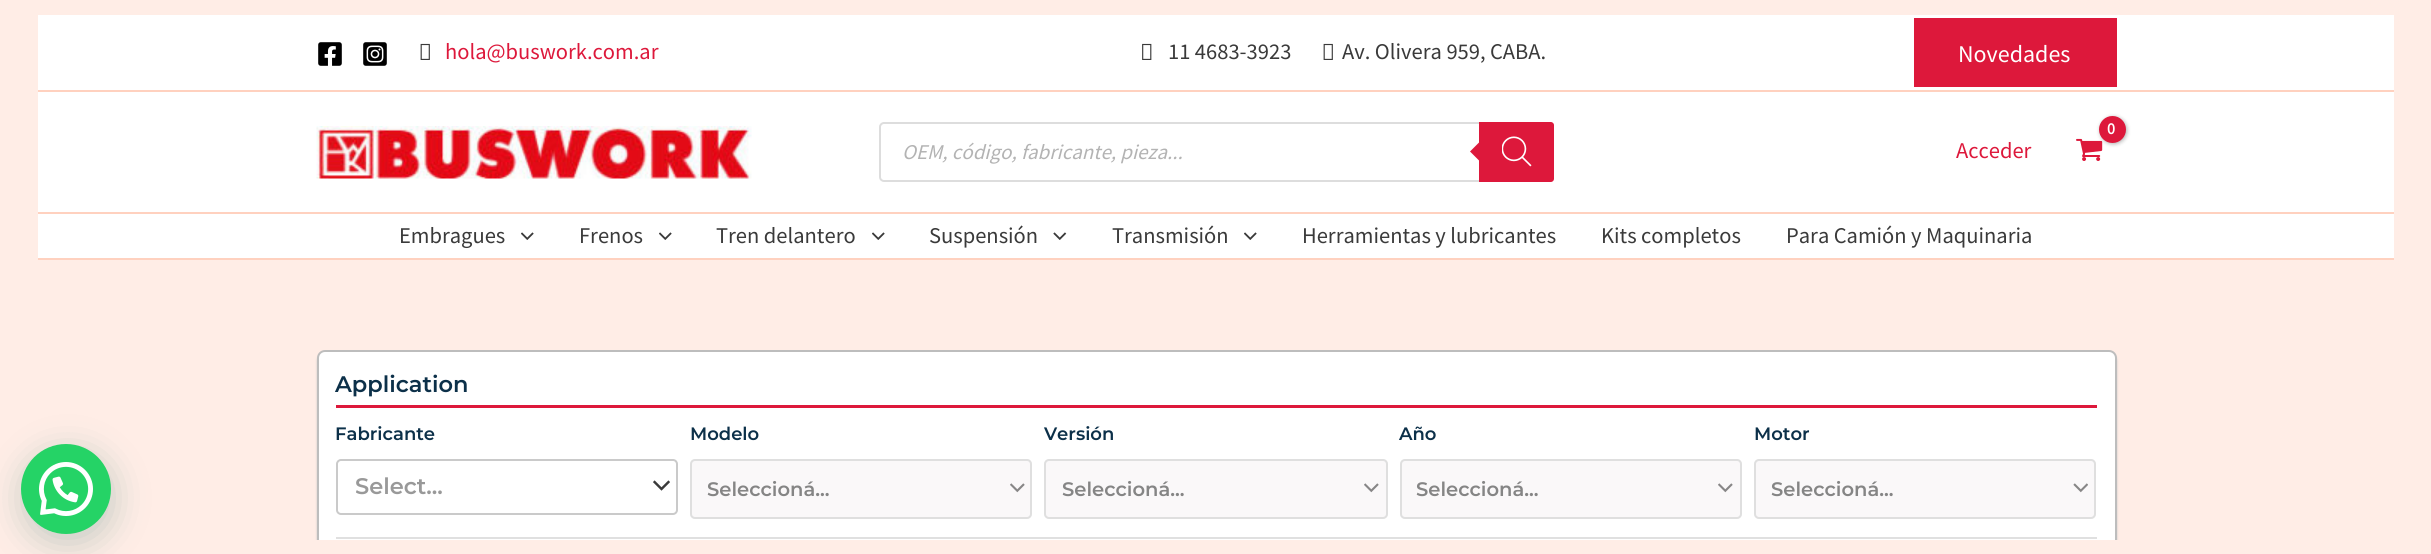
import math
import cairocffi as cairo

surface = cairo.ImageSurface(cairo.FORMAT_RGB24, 2431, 554)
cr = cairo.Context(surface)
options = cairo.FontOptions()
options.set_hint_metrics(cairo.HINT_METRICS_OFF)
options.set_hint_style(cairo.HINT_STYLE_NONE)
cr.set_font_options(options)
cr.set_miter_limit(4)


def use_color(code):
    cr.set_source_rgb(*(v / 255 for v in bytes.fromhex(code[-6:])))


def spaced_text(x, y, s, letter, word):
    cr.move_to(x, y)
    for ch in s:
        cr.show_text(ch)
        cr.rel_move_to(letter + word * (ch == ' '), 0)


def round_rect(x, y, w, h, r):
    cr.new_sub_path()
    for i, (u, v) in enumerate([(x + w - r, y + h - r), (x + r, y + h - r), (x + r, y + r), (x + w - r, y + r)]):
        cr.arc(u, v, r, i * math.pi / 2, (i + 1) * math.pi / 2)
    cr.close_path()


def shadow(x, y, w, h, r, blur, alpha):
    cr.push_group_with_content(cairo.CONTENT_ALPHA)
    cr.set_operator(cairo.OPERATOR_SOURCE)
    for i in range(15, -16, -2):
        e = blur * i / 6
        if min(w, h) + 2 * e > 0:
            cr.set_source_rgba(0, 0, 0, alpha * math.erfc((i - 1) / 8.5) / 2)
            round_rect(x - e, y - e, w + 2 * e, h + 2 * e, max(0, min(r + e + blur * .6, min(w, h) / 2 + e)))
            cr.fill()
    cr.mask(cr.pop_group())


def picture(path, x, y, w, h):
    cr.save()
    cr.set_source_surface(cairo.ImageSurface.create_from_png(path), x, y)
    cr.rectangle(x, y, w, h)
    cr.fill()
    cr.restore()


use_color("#ffede6")
cr.paint()
use_color("#075e54")
shadow(23, 453, 90, 90, 45, 18, 0.24)
use_color("#25d366")
cr.arc(66, 489, 45, 0, 2 * math.pi)
cr.fill()
picture("img1.png", 39, 462, 54, 54)
use_color("#ffffff")
cr.rectangle(38, 15, 2356, 75)
cr.fill()
use_color("#ffd1bf")
cr.rectangle(38, 90, 2356, 2)
cr.fill()
picture("img2.png", 318, 42, 24, 24)
picture("img3.png", 363, 42, 24, 24)
picture("img4.png", 420, 43, 10, 17)
cr.select_font_face("Source Sans Pro")
cr.set_font_size(22.5)
use_color("#dd183b")
cr.move_to(445, 59)
cr.show_text("hola@buswork.com.ar")
picture("img5.png", 1142, 43, 10, 17)
use_color("#3a3a3a")
cr.move_to(1168, 59)
cr.show_text("11 4683-3923")
picture("img4.png", 1323, 43, 10, 17)
cr.move_to(1342, 59)
cr.show_text("Av. Olivera 959, CABA.")
use_color("#dd183b")
cr.rectangle(1914, 18, 203, 69)
cr.fill()
cr.set_font_size(24)
use_color("#ffffff")
cr.move_to(1958, 62)
cr.show_text("Novedades")
cr.rectangle(38, 92, 2356, 120)
cr.fill()
use_color("#ffd1bf")
cr.rectangle(38, 212, 2356, 2)
cr.fill()
picture("img6.png", 316, 126, 436, 53)
round_rect(880, 123, 673, 58, 4)
use_color("#dddddd")
cr.stroke()
cr.select_font_face("Source Sans Pro", cairo.FONT_SLANT_ITALIC)
cr.set_font_size(21)
use_color("#b3b3b3")
cr.move_to(902, 159)
cr.show_text("OEM, código, fabricante, pieza...")
use_color("#dd183b")
cr.new_path()
cr.move_to(1479, 122)
cr.line_to(1551, 122)
cr.curve_to(1552.5, 122, 1554, 123.5, 1554, 125)
cr.line_to(1554, 179)
cr.curve_to(1554, 180.5, 1552.5, 182, 1551, 182)
cr.line_to(1479, 182)
cr.close_path()
cr.fill()
cr.new_path()
cr.move_to(1482, 139.5)
cr.line_to(1482, 163.5)
cr.line_to(1470, 151.5)
cr.close_path()
cr.fill()
picture("img7.png", 1502, 136, 30, 31)
picture("img8.png", 2076, 138, 27, 23)
use_color("#000000")
shadow(2100, 117, 27, 27, 13.5, 2, 0.3)
use_color("#dd183b")
cr.arc(2112.5, 129.5, 13.5, 0, 2 * math.pi)
cr.fill()
cr.select_font_face("Source Sans Pro", cairo.FONT_SLANT_NORMAL, cairo.FONT_WEIGHT_BOLD)
cr.set_font_size(16)
use_color("#ffffff")
spaced_text(2107, 134, "0", -1, 0)
cr.select_font_face("Source Sans Pro")
cr.set_font_size(22.5)
use_color("#dd183b")
cr.move_to(1956, 158)
cr.show_text("Acceder")
use_color("#ffffff")
cr.rectangle(38, 214, 2356, 44)
cr.fill()
use_color("#ffd1bf")
cr.rectangle(38, 258, 2356, 2)
cr.fill()
use_color("#3a3a3a")
cr.move_to(399, 243)
cr.show_text("Embragues")
picture("img9.png", 521, 232, 13, 8)
cr.move_to(579, 243)
cr.show_text("Frenos")
picture("img9.png", 659, 232, 13, 8)
cr.move_to(716, 243)
cr.show_text("Tren delantero")
picture("img9.png", 872, 232, 13, 8)
cr.move_to(929, 243)
cr.show_text("Suspensión")
picture("img10.png", 1053, 232, 14, 8)
cr.move_to(1112, 243)
cr.show_text("Transmisión")
picture("img9.png", 1244, 232, 13, 8)
cr.move_to(1302, 243)
cr.show_text("Herramientas y lubricantes")
cr.move_to(1601, 243)
cr.show_text("Kits completos")
cr.move_to(1786, 243)
cr.show_text("Para Camión y Maquinaria")
use_color("#c9c9c9")
shadow(317, 353, 1800, 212, 8, 1, 1)
use_color("#ffffff")
round_rect(318, 351, 1798, 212, 7)
cr.fill_preserve()
use_color("#bdbdbd")
cr.stroke()
use_color("#e0e0e0")
cr.rectangle(336, 537, 1761, 2)
cr.fill()
use_color("#dd183b")
cr.rectangle(336, 405, 1761, 3)
cr.fill()
cr.select_font_face("Montserrat SemiBold")
use_color("#0c3049")
cr.move_to(335, 392)
cr.show_text("Application")
cr.set_font_size(18)
cr.move_to(335, 440)
cr.show_text("Fabricante")
picture("img11.png", 653, 480, 17, 11)
round_rect(337, 460, 340, 54, 4)
use_color("#cacaca")
cr.stroke()
cr.save()
cr.rectangle(356, 471, 276, 30)
cr.clip()
cr.set_font_size(22.5)
use_color("#999999")
cr.move_to(355, 494)
cr.show_text("Select...")
cr.restore()
use_color("#0c3049")
cr.move_to(690, 440)
cr.show_text("Modelo")
use_color("#faf8f9")
round_rect(690, 459, 342, 60, 5)
cr.fill()
picture("img12.png", 1010, 483, 15, 10)
round_rect(691, 460, 340, 58, 4)
use_color("#dfdfdf")
cr.stroke()
cr.set_font_size(19.5)
use_color("#858585")
cr.move_to(707, 496)
cr.show_text("Seleccioná...")
cr.set_font_size(18)
use_color("#0c3049")
cr.move_to(1044, 440)
cr.show_text("Versión")
use_color("#faf8f9")
round_rect(1044, 459, 344, 60, 5)
cr.fill()
picture("img12.png", 1364, 483, 15, 10)
round_rect(1045, 460, 342, 58, 4)
use_color("#dfdfdf")
cr.stroke()
cr.set_font_size(19.5)
use_color("#858585")
cr.move_to(1062, 496)
cr.show_text("Seleccioná...")
cr.set_font_size(18)
use_color("#0c3049")
cr.move_to(1399, 440)
cr.show_text("Año")
use_color("#faf8f9")
round_rect(1400, 459, 342, 60, 5)
cr.fill()
picture("img12.png", 1718, 483, 15, 10)
round_rect(1401, 460, 340, 58, 4)
use_color("#dfdfdf")
cr.stroke()
cr.set_font_size(19.5)
use_color("#858585")
cr.move_to(1416, 496)
cr.show_text("Seleccioná...")
cr.set_font_size(18)
use_color("#0c3049")
cr.move_to(1754, 440)
cr.show_text("Motor")
use_color("#faf8f9")
round_rect(1754, 459, 342, 60, 5)
cr.fill()
picture("img13.png", 2073, 483, 15, 10)
round_rect(1755, 460, 340, 58, 4)
use_color("#dfdfdf")
cr.stroke()
cr.set_font_size(19.5)
use_color("#858585")
cr.move_to(1771, 496)
cr.show_text("Seleccioná...")
use_color("#ffede6")
cr.rectangle(315, 540, 1804, 14)
cr.fill()
surface.write_to_png("result.png")
